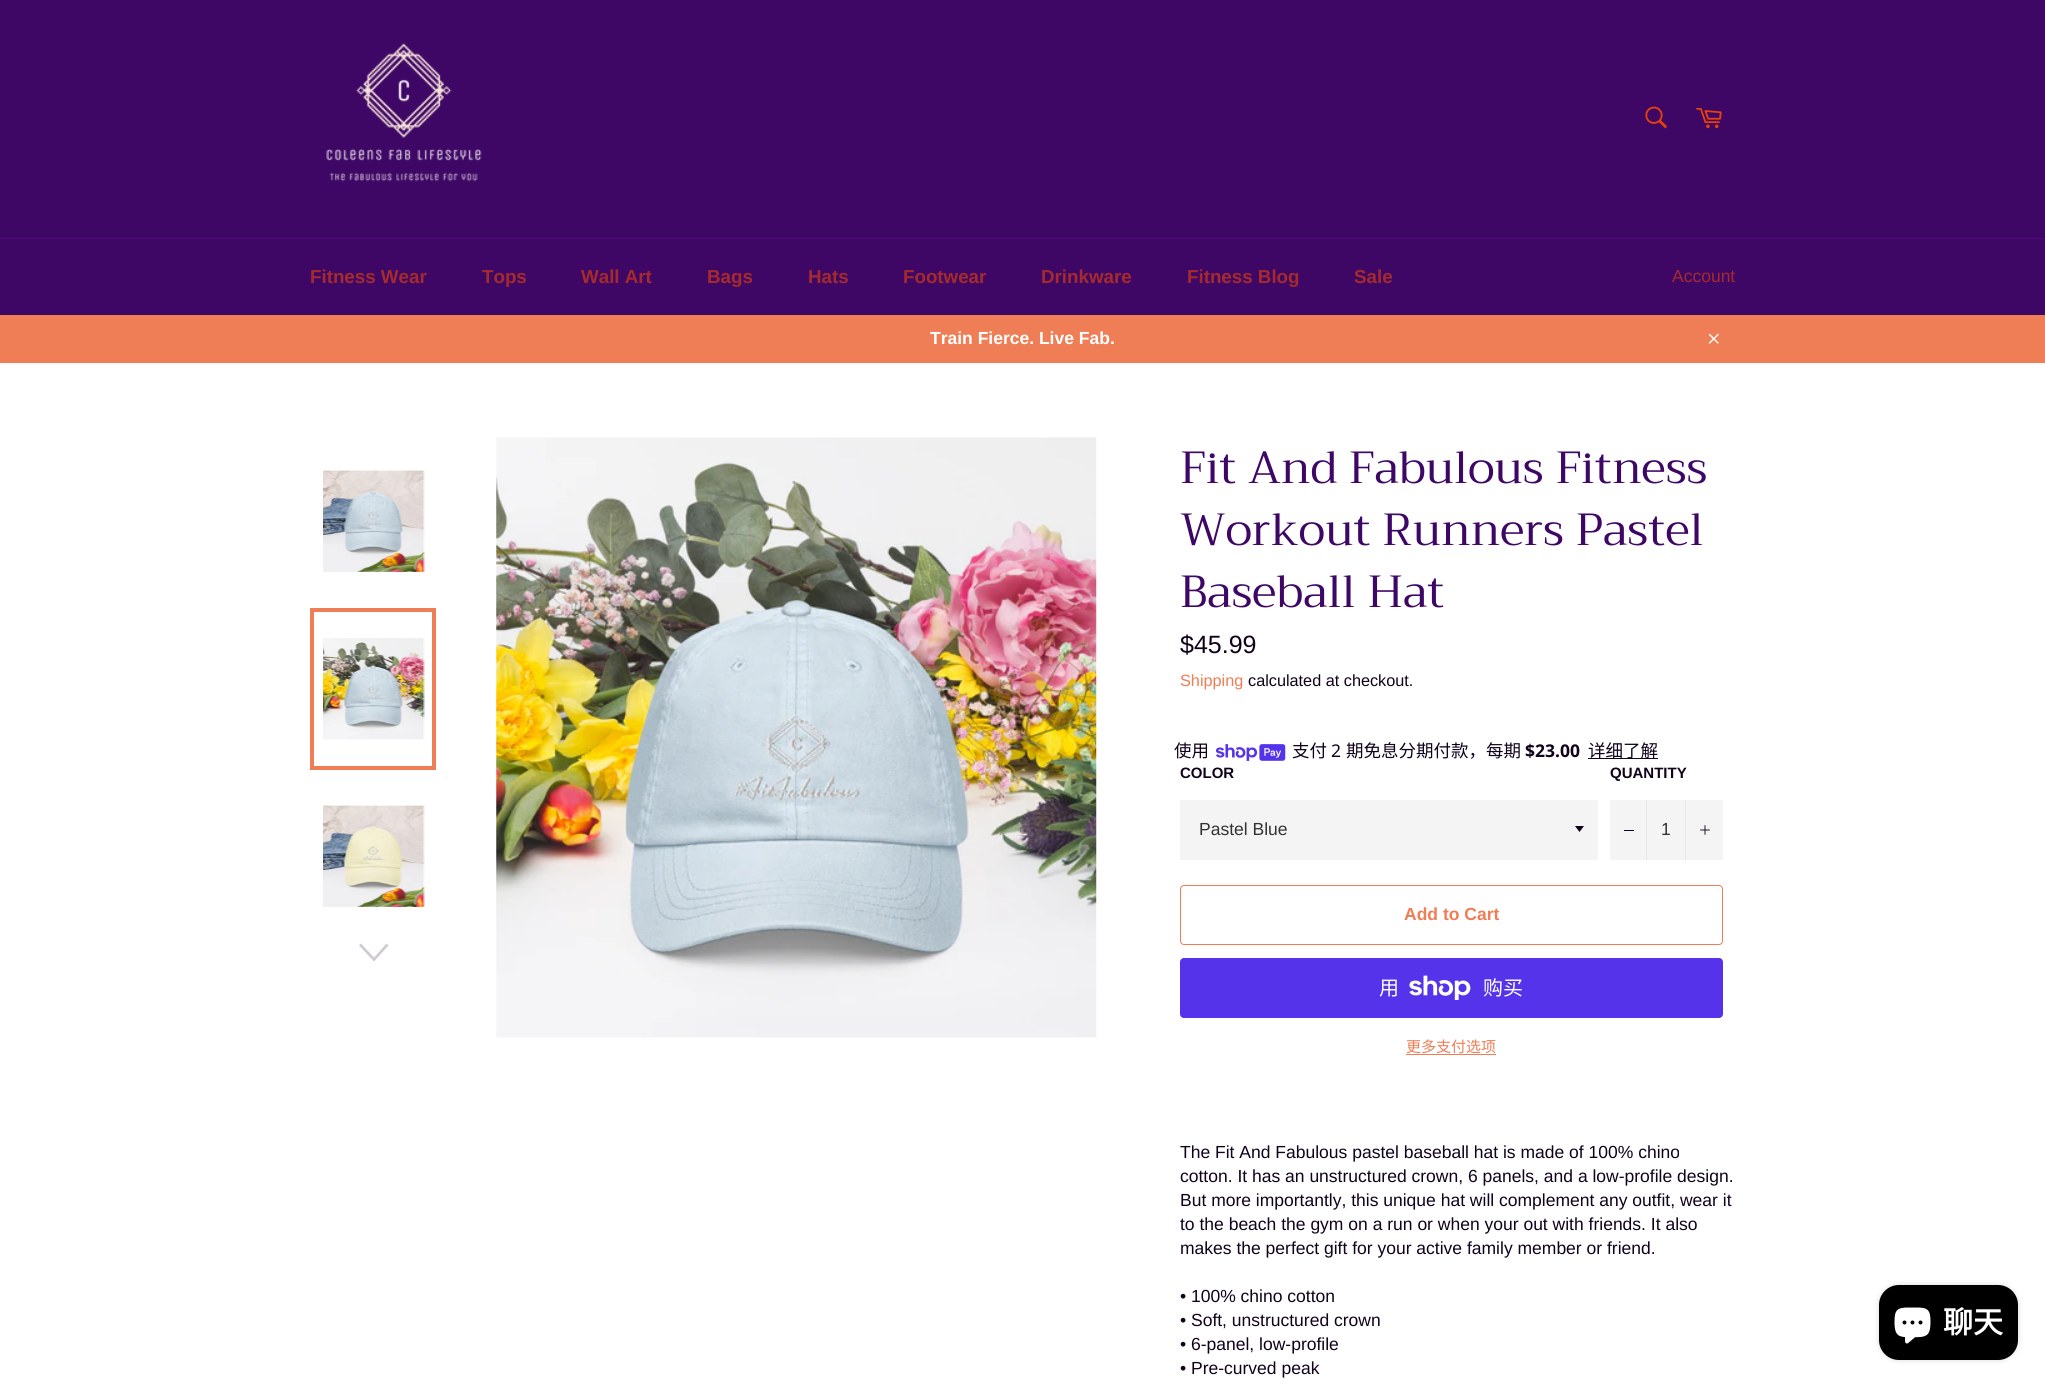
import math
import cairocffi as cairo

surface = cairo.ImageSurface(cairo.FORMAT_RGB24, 2045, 1386)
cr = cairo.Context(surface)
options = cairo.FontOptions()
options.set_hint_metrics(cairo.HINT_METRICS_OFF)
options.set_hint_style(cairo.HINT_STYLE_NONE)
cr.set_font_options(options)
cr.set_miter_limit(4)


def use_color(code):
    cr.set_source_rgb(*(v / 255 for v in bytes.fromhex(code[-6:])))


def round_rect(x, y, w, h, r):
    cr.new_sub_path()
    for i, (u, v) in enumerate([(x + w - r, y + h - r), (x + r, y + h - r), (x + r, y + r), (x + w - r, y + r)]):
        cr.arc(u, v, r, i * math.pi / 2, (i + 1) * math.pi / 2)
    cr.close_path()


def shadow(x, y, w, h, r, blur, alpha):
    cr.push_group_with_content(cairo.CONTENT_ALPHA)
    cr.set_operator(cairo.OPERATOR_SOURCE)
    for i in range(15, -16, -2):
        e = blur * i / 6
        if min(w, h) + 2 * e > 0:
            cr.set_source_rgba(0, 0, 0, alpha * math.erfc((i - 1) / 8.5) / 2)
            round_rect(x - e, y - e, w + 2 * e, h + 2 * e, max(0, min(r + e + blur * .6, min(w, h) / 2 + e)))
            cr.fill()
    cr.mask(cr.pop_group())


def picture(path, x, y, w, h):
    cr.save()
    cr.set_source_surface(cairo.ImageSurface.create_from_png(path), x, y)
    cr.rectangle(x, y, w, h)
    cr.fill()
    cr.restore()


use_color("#ffffff")
cr.paint()
use_color("#3f0765")
cr.rectangle(0, 0, 2045, 238)
cr.fill()
picture("img1.png", 326, 43, 156, 139)
picture("img2.png", 1645, 106, 22, 23)
picture("img3.png", 1696, 108, 26, 21)
cr.rectangle(0, 239, 2045, 76)
cr.fill()
use_color("#4e097d")
cr.rectangle(0, 238, 2045, 1)
cr.fill()
cr.select_font_face("Arimo", cairo.FONT_SLANT_NORMAL, cairo.FONT_WEIGHT_BOLD)
cr.set_font_size(18.75)
use_color("#a42a2d")
cr.move_to(310, 283)
cr.show_text("Fitness Wear")
cr.move_to(482, 283)
cr.show_text("Tops")
cr.move_to(581, 283)
cr.show_text("Wall Art")
cr.move_to(707, 283)
cr.show_text("Bags")
cr.move_to(808, 283)
cr.show_text("Hats")
cr.move_to(903, 283)
cr.show_text("Footwear")
cr.move_to(1041, 283)
cr.show_text("Drinkware")
cr.move_to(1187, 283)
cr.show_text("Fitness Blog")
cr.move_to(1354, 283)
cr.show_text("Sale")
cr.select_font_face("Arimo")
cr.set_font_size(17.5)
cr.move_to(1672, 282)
cr.show_text("Account")
use_color("#ef7d55")
cr.rectangle(0, 315, 2045, 48)
cr.fill()
cr.select_font_face("Arimo", cairo.FONT_SLANT_NORMAL, cairo.FONT_WEIGHT_BOLD)
use_color("#ffffff")
cr.move_to(930, 344)
cr.show_text("Train Fierce. Live Fab.")
picture("img4.png", 1708, 333, 11, 11)
picture("img5.png", 323, 470, 102, 102)
picture("img6.png", 323, 638, 102, 102)
cr.rectangle(312, 610, 122, 158)
use_color("#ef7d55")
cr.set_line_width(4)
cr.stroke()
picture("img7.png", 323, 805, 102, 102)
use_color("#cfccd1")
cr.new_path()
cr.move_to(386.5, 943.5)
cr.line_to(388.5, 945.5)
cr.line_to(374, 961.5)
cr.line_to(359, 945.5)
cr.line_to(361, 943.5)
cr.line_to(374, 957.5)
cr.close_path()
cr.fill()
picture("img8.png", 496, 437, 601, 601)
cr.select_font_face("Trirong")
cr.set_font_size(45)
use_color("#3f0765")
cr.move_to(1180, 483)
cr.show_text("Fit And Fabulous Fitness")
cr.move_to(1180, 545)
cr.show_text("Workout Runners Pastel")
cr.move_to(1180, 607)
cr.show_text("Baseball Hat")
cr.select_font_face("Arimo")
cr.set_font_size(25)
use_color("#10021b")
cr.move_to(1180, 653)
cr.show_text("$45.99")
cr.set_font_size(16.25)
use_color("#ef7d55")
cr.move_to(1180, 686)
cr.show_text("Shipping")
use_color("#10021b")
cr.move_to(1248, 686)
cr.show_text("calculated at checkout.")
cr.select_font_face("Noto Sans CJK SC")
cr.set_font_size(17.5)
cr.move_to(1174, 757)
cr.show_text("使用")
picture("img9.png", 1216, 744, 70, 17)
cr.move_to(1292, 757)
cr.show_text("支付")
cr.select_font_face("Noto Sans")
cr.move_to(1331, 757)
cr.show_text("2")
cr.select_font_face("Noto Sans CJK SC")
cr.move_to(1346, 757)
cr.show_text("期免息分期付款，每期")
cr.select_font_face("Noto Sans", cairo.FONT_SLANT_NORMAL, cairo.FONT_WEIGHT_BOLD)
cr.move_to(1525, 757)
cr.show_text("$23.00")
cr.rectangle(1588, 758, 70, 1)
cr.fill()
cr.select_font_face("Noto Sans CJK SC")
cr.move_to(1588, 757)
cr.show_text("详细了解")
cr.select_font_face("Arimo", cairo.FONT_SLANT_NORMAL, cairo.FONT_WEIGHT_BOLD)
cr.set_font_size(15)
cr.move_to(1180, 778)
cr.show_text("COLOR")
use_color("#f4f4f4")
cr.rectangle(1180, 800, 418, 60)
cr.fill()
use_color("#10021b")
cr.new_path()
cr.move_to(1575, 826)
cr.line_to(1579.5, 832)
cr.line_to(1584, 826)
cr.close_path()
cr.fill()
cr.select_font_face("Arimo")
cr.set_font_size(17.5)
use_color("#333333")
cr.move_to(1199, 835)
cr.show_text("Pastel Blue")
cr.select_font_face("Arimo", cairo.FONT_SLANT_NORMAL, cairo.FONT_WEIGHT_BOLD)
cr.set_font_size(15)
use_color("#10021b")
cr.move_to(1610, 778)
cr.show_text("QUANTITY")
use_color("#f4f4f4")
cr.rectangle(1610, 800, 113, 60)
cr.fill()
use_color("#e7e7e7")
cr.rectangle(1646, 800, 1, 60)
cr.fill()
use_color("#10021b")
cr.rectangle(1624, 830, 10, 1)
cr.fill()
cr.select_font_face("Arimo")
cr.set_font_size(17.5)
use_color("#333333")
cr.move_to(1661, 835)
cr.show_text("1")
use_color("#e7e7e7")
cr.rectangle(1685, 800, 1, 60)
cr.fill()
picture("img10.png", 1700, 825, 10, 10)
round_rect(1180.5, 885.5, 542, 59, 3.5)
use_color("#ef7d55")
cr.set_line_width(1)
cr.stroke()
cr.select_font_face("Arimo", cairo.FONT_SLANT_NORMAL, cairo.FONT_WEIGHT_BOLD)
cr.move_to(1404, 920)
cr.show_text("Add to Cart")
use_color("#5433eb")
round_rect(1180, 958, 543, 60, 4)
cr.fill()
cr.select_font_face("Noto Sans CJK SC")
cr.set_font_size(20)
use_color("#ffffff")
cr.move_to(1379, 995)
cr.show_text("用")
picture("img11.png", 1409, 975, 62, 25)
cr.move_to(1483, 995)
cr.show_text("购买")
cr.set_font_size(15)
use_color("#ef7d55")
cr.move_to(1406, 1052)
cr.show_text("更多支付选项")
cr.rectangle(1406, 1054, 90, 1)
cr.fill()
cr.select_font_face("Arimo")
cr.set_font_size(17.5)
use_color("#10021b")
cr.move_to(1180, 1158)
cr.show_text("The Fit And Fabulous pastel baseball hat is made of 100% chino")
cr.move_to(1180, 1182)
cr.show_text("cotton. It has an unstructured crown, 6 panels, and a low-profile design.")
cr.move_to(1180, 1206)
cr.show_text("But more importantly, this unique hat will complement any outfit, wear it")
cr.move_to(1180, 1230)
cr.show_text("to the beach the gym on a run or when your out with friends. It also")
cr.move_to(1180, 1254)
cr.show_text("makes the perfect gift for your active family member or friend.")
cr.move_to(1180, 1302)
cr.show_text("• 100% chino cotton")
cr.move_to(1180, 1326)
cr.show_text("• Soft, unstructured crown")
cr.move_to(1180, 1350)
cr.show_text("• 6-panel, low-profile")
cr.move_to(1180, 1374)
cr.show_text("• Pre-curved peak")
use_color("#000000")
shadow(1879, 1285, 139, 75, 20, 3, 0.15)
use_color("#000000")
round_rect(1879, 1285, 139, 75, 20)
cr.fill()
picture("img12.png", 1894, 1307, 37, 37)
cr.select_font_face("Noto Sans CJK SC", cairo.FONT_SLANT_NORMAL, cairo.FONT_WEIGHT_BOLD)
cr.set_font_size(30)
use_color("#ffffff")
cr.move_to(1943, 1333)
cr.show_text("聊天")
surface.write_to_png("result.png")
